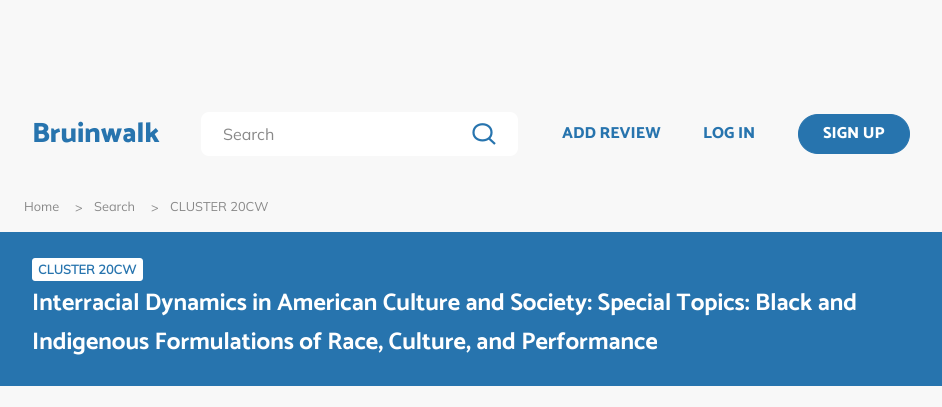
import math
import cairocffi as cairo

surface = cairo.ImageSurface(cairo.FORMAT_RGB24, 942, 407)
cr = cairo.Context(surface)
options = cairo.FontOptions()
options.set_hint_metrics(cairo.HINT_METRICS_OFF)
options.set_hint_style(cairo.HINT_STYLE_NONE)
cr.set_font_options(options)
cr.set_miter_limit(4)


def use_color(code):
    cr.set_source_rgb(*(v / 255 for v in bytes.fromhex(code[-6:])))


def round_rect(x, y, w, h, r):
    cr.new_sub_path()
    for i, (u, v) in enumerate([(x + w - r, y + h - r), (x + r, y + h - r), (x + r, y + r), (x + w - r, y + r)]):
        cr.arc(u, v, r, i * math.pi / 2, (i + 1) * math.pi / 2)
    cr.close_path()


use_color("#f8f8f8")
cr.paint()
cr.select_font_face("Catamaran ExtraBold")
cr.set_font_size(28)
use_color("#2774ae")
cr.move_to(32, 142)
cr.show_text("Bruinwalk")
use_color("#ffffff")
round_rect(201, 112, 317, 44, 8)
cr.fill()
cr.select_font_face("Mulish ExtraLight")
cr.set_font_size(16)
use_color("#898989")
cr.move_to(223, 140)
cr.show_text("Search")
cr.new_path()
cr.move_to(491.5, 132.5)
cr.curve_to(491.5, 143, 473.5, 143, 473.5, 132.5)
cr.curve_to(473.5, 121.5, 491.5, 121.5, 491.5, 132.5)
cr.close_path()
cr.move_to(488.5, 138)
cr.line_to(495, 144)
use_color("#2774ae")
cr.set_line_width(2.2)
cr.stroke()
cr.select_font_face("Catamaran ExtraBold")
cr.move_to(562, 138)
cr.show_text("ADD REVIEW")
cr.move_to(703, 138)
cr.show_text("LOG IN")
round_rect(798.5, 114.5, 111, 39, 19.5)
cr.fill_preserve()
cr.set_line_width(1)
cr.stroke()
use_color("#ffffff")
cr.move_to(823, 138)
cr.show_text("SIGN UP")
cr.select_font_face("Mulish ExtraLight")
cr.set_font_size(12.75)
use_color("#898989")
cr.move_to(24, 211)
cr.show_text("Home")
cr.move_to(75, 212)
cr.show_text(">")
cr.move_to(94, 211)
cr.show_text("Search")
cr.move_to(151, 212)
cr.show_text(">")
cr.move_to(170, 211)
cr.show_text("CLUSTER 20CW")
use_color("#2774ae")
cr.rectangle(0, 232, 942, 154)
cr.fill()
use_color("#ffffff")
round_rect(32, 258, 111, 23, 3)
cr.fill()
cr.select_font_face("Mulish", cairo.FONT_SLANT_NORMAL, cairo.FONT_WEIGHT_BOLD)
use_color("#2774ae")
cr.move_to(38, 274)
cr.show_text("CLUSTER 20CW")
cr.select_font_face("Catamaran", cairo.FONT_SLANT_NORMAL, cairo.FONT_WEIGHT_BOLD)
cr.set_font_size(24)
use_color("#ffffff")
cr.move_to(32, 310)
cr.show_text("Interracial Dynamics in American Culture and Society: Special Topics: Black and")
cr.move_to(32, 349)
cr.show_text("Indigenous Formulations of Race, Culture, and Performance")
surface.write_to_png("result.png")
